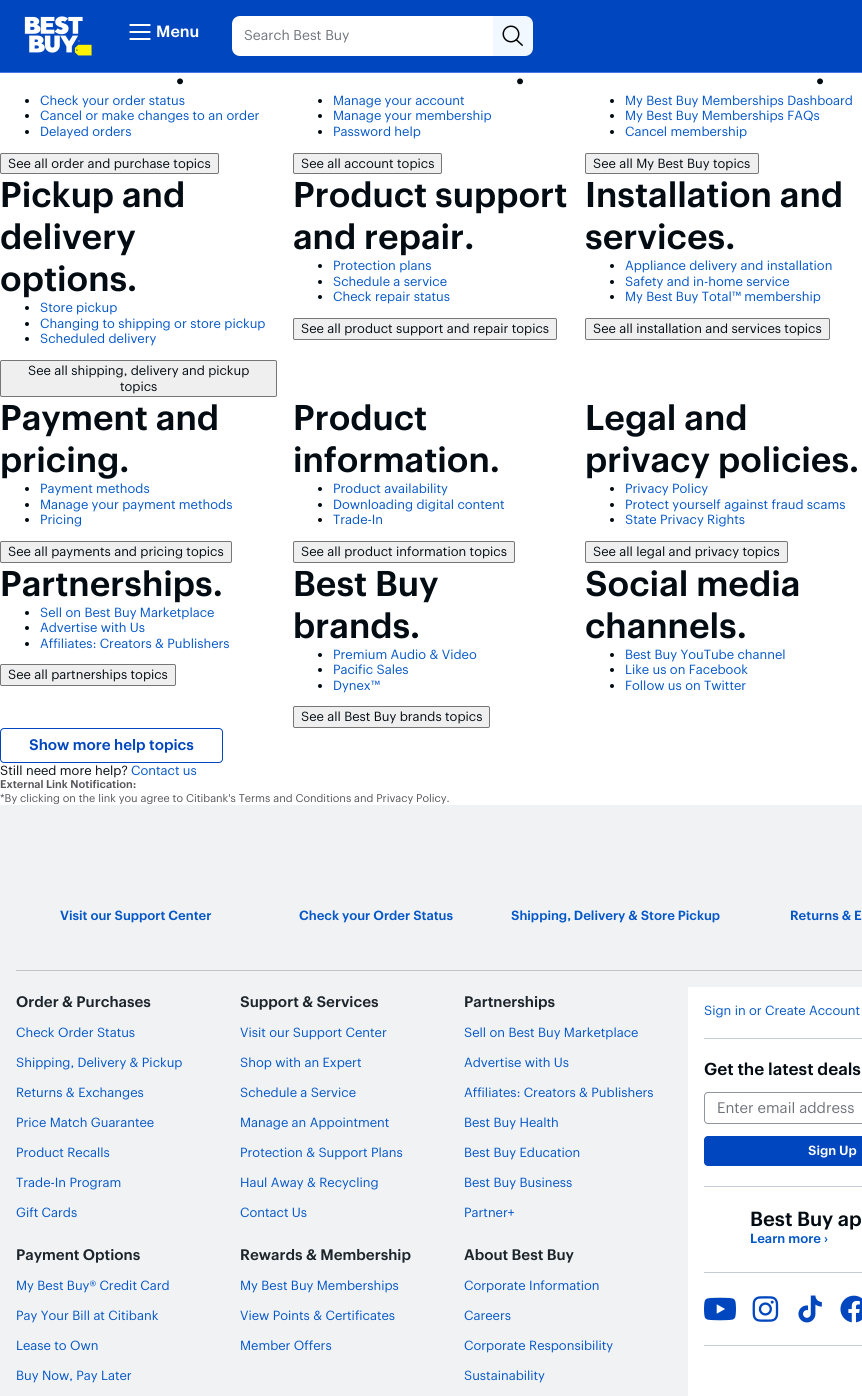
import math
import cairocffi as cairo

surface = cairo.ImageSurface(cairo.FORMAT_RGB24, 862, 1396)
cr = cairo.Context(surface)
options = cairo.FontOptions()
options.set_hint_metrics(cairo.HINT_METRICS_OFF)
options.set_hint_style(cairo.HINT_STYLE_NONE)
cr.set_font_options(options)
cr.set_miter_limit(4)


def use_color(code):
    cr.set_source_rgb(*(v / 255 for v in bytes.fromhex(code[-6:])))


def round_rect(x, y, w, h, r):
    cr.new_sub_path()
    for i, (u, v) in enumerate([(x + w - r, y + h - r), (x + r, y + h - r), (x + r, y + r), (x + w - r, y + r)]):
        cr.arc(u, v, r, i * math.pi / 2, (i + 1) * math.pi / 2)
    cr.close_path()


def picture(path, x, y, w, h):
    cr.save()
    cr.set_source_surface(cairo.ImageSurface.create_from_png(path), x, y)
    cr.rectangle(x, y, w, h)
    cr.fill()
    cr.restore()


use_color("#ffffff")
cr.paint()
use_color("#0046be")
cr.rectangle(0, 0, 862, 72)
cr.fill()
use_color("#4976e6")
cr.rectangle(0, 72, 862, 1)
cr.fill()
picture("img1.png", 24, 16, 68, 40)
picture("img2.png", 129, 24, 22, 16)
cr.select_font_face("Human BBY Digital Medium")
cr.set_font_size(16)
use_color("#ffffff")
cr.move_to(156, 37)
cr.show_text("Menu")
cr.new_path()
cr.move_to(240, 16)
cr.line_to(493, 16)
cr.line_to(493, 56)
cr.line_to(240, 56)
cr.curve_to(235.5, 56, 232, 52.5, 232, 48)
cr.line_to(232, 24)
cr.curve_to(232, 19.5, 235.5, 16, 240, 16)
cr.close_path()
cr.fill()
cr.select_font_face("Human BBY Digital")
cr.set_font_size(14)
use_color("#70757d")
cr.move_to(244, 40)
cr.show_text("Search Best Buy")
use_color("#f1f8ff")
cr.new_path()
cr.move_to(493, 16)
cr.line_to(525, 16)
cr.curve_to(529.5, 16, 533, 19.5, 533, 24)
cr.line_to(533, 48)
cr.curve_to(533, 52.5, 529.5, 56, 525, 56)
cr.line_to(493, 56)
cr.close_path()
cr.fill()
picture("img3.png", 502, 25, 21, 21)
cr.select_font_face("Human BBY Digital Medium")
cr.set_font_size(35)
use_color("#040c13")
cr.move_to(175, 84)
cr.show_text(".")
cr.new_path()
cr.arc(27, 101, 2, 0, 2 * math.pi)
cr.fill()
cr.select_font_face("Human BBY Digital")
cr.set_font_size(13)
use_color("#0457c8")
cr.move_to(40, 105)
cr.show_text("Check your order status")
use_color("#040c13")
cr.new_path()
cr.arc(27, 116, 2, 0, 2 * math.pi)
cr.fill()
use_color("#0457c8")
cr.move_to(40, 120)
cr.show_text("Cancel or make changes to an order")
use_color("#040c13")
cr.new_path()
cr.arc(27, 132, 2, 0, 2 * math.pi)
cr.fill()
use_color("#0457c8")
cr.move_to(40, 136)
cr.show_text("Delayed orders")
use_color("#efefef")
round_rect(0.5, 153.5, 218, 20, 1.5)
cr.fill_preserve()
use_color("#767676")
cr.set_line_width(1)
cr.stroke()
use_color("#040c13")
cr.move_to(8, 168)
cr.show_text("See all order and purchase topics")
cr.select_font_face("Human BBY Digital Medium")
cr.set_font_size(35)
cr.move_to(515, 84)
cr.show_text(".")
cr.new_path()
cr.arc(320, 101, 2, 0, 2 * math.pi)
cr.fill()
cr.select_font_face("Human BBY Digital")
cr.set_font_size(13)
use_color("#0457c8")
cr.move_to(333, 105)
cr.show_text("Manage your account")
use_color("#040c13")
cr.new_path()
cr.arc(320, 116, 2, 0, 2 * math.pi)
cr.fill()
use_color("#0457c8")
cr.move_to(333, 120)
cr.show_text("Manage your membership")
use_color("#040c13")
cr.new_path()
cr.arc(320, 132, 2, 0, 2 * math.pi)
cr.fill()
use_color("#0457c8")
cr.move_to(333, 136)
cr.show_text("Password help")
use_color("#efefef")
round_rect(293.5, 153.5, 148, 20, 1.5)
cr.fill_preserve()
use_color("#767676")
cr.stroke()
use_color("#040c13")
cr.move_to(301, 168)
cr.show_text("See all account topics")
cr.select_font_face("Human BBY Digital Medium")
cr.set_font_size(35)
cr.move_to(815, 84)
cr.show_text(".")
cr.new_path()
cr.arc(612, 101, 2, 0, 2 * math.pi)
cr.fill()
cr.select_font_face("Human BBY Digital")
cr.set_font_size(13)
use_color("#0457c8")
cr.move_to(625, 105)
cr.show_text("My Best Buy Memberships Dashboard")
use_color("#040c13")
cr.new_path()
cr.arc(612, 116, 2, 0, 2 * math.pi)
cr.fill()
use_color("#0457c8")
cr.move_to(625, 120)
cr.show_text("My Best Buy Memberships FAQs")
use_color("#040c13")
cr.new_path()
cr.arc(612, 132, 2, 0, 2 * math.pi)
cr.fill()
use_color("#0457c8")
cr.move_to(625, 136)
cr.show_text("Cancel membership")
use_color("#efefef")
round_rect(585.5, 153.5, 173, 20, 1.5)
cr.fill_preserve()
use_color("#767676")
cr.stroke()
use_color("#040c13")
cr.move_to(593, 168)
cr.show_text("See all My Best Buy topics")
cr.select_font_face("Human BBY Digital Medium")
cr.set_font_size(35)
cr.move_to(0, 207)
cr.show_text("Pickup and")
cr.move_to(0, 249)
cr.show_text("delivery")
cr.move_to(0, 291)
cr.show_text("options.")
cr.new_path()
cr.arc(27, 308, 2, 0, 2 * math.pi)
cr.fill()
cr.select_font_face("Human BBY Digital")
cr.set_font_size(13)
use_color("#0457c8")
cr.move_to(40, 312)
cr.show_text("Store pickup")
use_color("#040c13")
cr.new_path()
cr.arc(27, 324, 2, 0, 2 * math.pi)
cr.fill()
use_color("#0457c8")
cr.move_to(40, 328)
cr.show_text("Changing to shipping or store pickup")
use_color("#040c13")
cr.new_path()
cr.arc(27, 339, 2, 0, 2 * math.pi)
cr.fill()
use_color("#0457c8")
cr.move_to(40, 343)
cr.show_text("Scheduled delivery")
use_color("#efefef")
round_rect(0.5, 360.5, 276, 36, 1.5)
cr.fill_preserve()
use_color("#767676")
cr.stroke()
use_color("#040c13")
cr.move_to(28, 375)
cr.show_text("See all shipping, delivery and pickup")
cr.move_to(120, 391)
cr.show_text("topics")
cr.select_font_face("Human BBY Digital Medium")
cr.set_font_size(35)
cr.move_to(293, 207)
cr.show_text("Product support")
cr.move_to(293, 249)
cr.show_text("and repair.")
cr.new_path()
cr.arc(320, 266, 2, 0, 2 * math.pi)
cr.fill()
cr.select_font_face("Human BBY Digital")
cr.set_font_size(13)
use_color("#0457c8")
cr.move_to(333, 270)
cr.show_text("Protection plans")
use_color("#040c13")
cr.new_path()
cr.arc(320, 282, 2, 0, 2 * math.pi)
cr.fill()
use_color("#0457c8")
cr.move_to(333, 286)
cr.show_text("Schedule a service")
use_color("#040c13")
cr.new_path()
cr.arc(320, 297, 2, 0, 2 * math.pi)
cr.fill()
use_color("#0457c8")
cr.move_to(333, 301)
cr.show_text("Check repair status")
use_color("#efefef")
round_rect(293.5, 318.5, 263, 21, 1.5)
cr.fill_preserve()
use_color("#767676")
cr.stroke()
use_color("#040c13")
cr.move_to(301, 333)
cr.show_text("See all product support and repair topics")
cr.select_font_face("Human BBY Digital Medium")
cr.set_font_size(35)
cr.move_to(585, 207)
cr.show_text("Installation and")
cr.move_to(585, 249)
cr.show_text("services.")
cr.new_path()
cr.arc(612, 266, 2, 0, 2 * math.pi)
cr.fill()
cr.select_font_face("Human BBY Digital")
cr.set_font_size(13)
use_color("#0457c8")
cr.move_to(625, 270)
cr.show_text("Appliance delivery and installation")
use_color("#040c13")
cr.new_path()
cr.arc(612, 282, 2, 0, 2 * math.pi)
cr.fill()
use_color("#0457c8")
cr.move_to(625, 286)
cr.show_text("Safety and in-home service")
use_color("#040c13")
cr.new_path()
cr.arc(612, 297, 2, 0, 2 * math.pi)
cr.fill()
use_color("#0457c8")
cr.move_to(625, 301)
cr.show_text("My Best Buy Total™ membership")
use_color("#efefef")
round_rect(585.5, 318.5, 244, 21, 1.5)
cr.fill_preserve()
use_color("#767676")
cr.stroke()
use_color("#040c13")
cr.move_to(593, 333)
cr.show_text("See all installation and services topics")
cr.select_font_face("Human BBY Digital Medium")
cr.set_font_size(35)
cr.move_to(0, 430)
cr.show_text("Payment and")
cr.move_to(0, 472)
cr.show_text("pricing.")
cr.new_path()
cr.arc(27, 489, 2, 0, 2 * math.pi)
cr.fill()
cr.select_font_face("Human BBY Digital")
cr.set_font_size(13)
use_color("#0457c8")
cr.move_to(40, 493)
cr.show_text("Payment methods")
use_color("#040c13")
cr.new_path()
cr.arc(27, 505, 2, 0, 2 * math.pi)
cr.fill()
use_color("#0457c8")
cr.move_to(40, 509)
cr.show_text("Manage your payment methods")
use_color("#040c13")
cr.new_path()
cr.arc(27, 520, 2, 0, 2 * math.pi)
cr.fill()
use_color("#0457c8")
cr.move_to(40, 524)
cr.show_text("Pricing")
use_color("#efefef")
round_rect(0.5, 541.5, 231, 21, 1.5)
cr.fill_preserve()
use_color("#767676")
cr.stroke()
use_color("#040c13")
cr.move_to(8, 556)
cr.show_text("See all payments and pricing topics")
cr.select_font_face("Human BBY Digital Medium")
cr.set_font_size(35)
cr.move_to(293, 430)
cr.show_text("Product")
cr.move_to(293, 472)
cr.show_text("information.")
cr.new_path()
cr.arc(320, 489, 2, 0, 2 * math.pi)
cr.fill()
cr.select_font_face("Human BBY Digital")
cr.set_font_size(13)
use_color("#0457c8")
cr.move_to(333, 493)
cr.show_text("Product availability")
use_color("#040c13")
cr.new_path()
cr.arc(320, 505, 2, 0, 2 * math.pi)
cr.fill()
use_color("#0457c8")
cr.move_to(333, 509)
cr.show_text("Downloading digital content")
use_color("#040c13")
cr.new_path()
cr.arc(320, 520, 2, 0, 2 * math.pi)
cr.fill()
use_color("#0457c8")
cr.move_to(333, 524)
cr.show_text("Trade-In")
use_color("#efefef")
round_rect(293.5, 541.5, 221, 21, 1.5)
cr.fill_preserve()
use_color("#767676")
cr.stroke()
use_color("#040c13")
cr.move_to(301, 556)
cr.show_text("See all product information topics")
cr.select_font_face("Human BBY Digital Medium")
cr.set_font_size(35)
cr.move_to(585, 430)
cr.show_text("Legal and")
cr.move_to(585, 472)
cr.show_text("privacy policies.")
cr.new_path()
cr.arc(612, 489, 2, 0, 2 * math.pi)
cr.fill()
cr.select_font_face("Human BBY Digital")
cr.set_font_size(13)
use_color("#0457c8")
cr.move_to(625, 493)
cr.show_text("Privacy Policy")
use_color("#040c13")
cr.new_path()
cr.arc(612, 505, 2, 0, 2 * math.pi)
cr.fill()
use_color("#0457c8")
cr.move_to(625, 509)
cr.show_text("Protect yourself against fraud scams")
use_color("#040c13")
cr.new_path()
cr.arc(612, 520, 2, 0, 2 * math.pi)
cr.fill()
use_color("#0457c8")
cr.move_to(625, 524)
cr.show_text("State Privacy Rights")
use_color("#efefef")
round_rect(585.5, 541.5, 202, 21, 1.5)
cr.fill_preserve()
use_color("#767676")
cr.stroke()
use_color("#040c13")
cr.move_to(593, 556)
cr.show_text("See all legal and privacy topics")
cr.select_font_face("Human BBY Digital Medium")
cr.set_font_size(35)
cr.move_to(0, 596)
cr.show_text("Partnerships.")
cr.new_path()
cr.arc(27, 613, 2, 0, 2 * math.pi)
cr.fill()
cr.select_font_face("Human BBY Digital")
cr.set_font_size(13)
use_color("#0457c8")
cr.move_to(40, 617)
cr.show_text("Sell on Best Buy Marketplace")
use_color("#040c13")
cr.new_path()
cr.arc(27, 628, 2, 0, 2 * math.pi)
cr.fill()
use_color("#0457c8")
cr.move_to(40, 632)
cr.show_text("Advertise with Us")
use_color("#040c13")
cr.new_path()
cr.arc(27, 644, 2, 0, 2 * math.pi)
cr.fill()
use_color("#0457c8")
cr.move_to(40, 648)
cr.show_text("Affiliates: Creators & Publishers")
use_color("#efefef")
round_rect(0.5, 664.5, 175, 21, 1.5)
cr.fill_preserve()
use_color("#767676")
cr.stroke()
use_color("#040c13")
cr.move_to(8, 679)
cr.show_text("See all partnerships topics")
cr.select_font_face("Human BBY Digital Medium")
cr.set_font_size(35)
cr.move_to(293, 596)
cr.show_text("Best Buy")
cr.move_to(293, 638)
cr.show_text("brands.")
cr.new_path()
cr.arc(320, 655, 2, 0, 2 * math.pi)
cr.fill()
cr.select_font_face("Human BBY Digital")
cr.set_font_size(13)
use_color("#0457c8")
cr.move_to(333, 659)
cr.show_text("Premium Audio & Video")
use_color("#040c13")
cr.new_path()
cr.arc(320, 670, 2, 0, 2 * math.pi)
cr.fill()
use_color("#0457c8")
cr.move_to(333, 674)
cr.show_text("Pacific Sales")
use_color("#040c13")
cr.new_path()
cr.arc(320, 686, 2, 0, 2 * math.pi)
cr.fill()
use_color("#0457c8")
cr.move_to(333, 690)
cr.show_text("Dynex™")
use_color("#efefef")
round_rect(293.5, 706.5, 196, 21, 1.5)
cr.fill_preserve()
use_color("#767676")
cr.stroke()
use_color("#040c13")
cr.move_to(301, 721)
cr.show_text("See all Best Buy brands topics")
cr.select_font_face("Human BBY Digital Medium")
cr.set_font_size(35)
cr.move_to(585, 596)
cr.show_text("Social media")
cr.move_to(585, 638)
cr.show_text("channels.")
cr.new_path()
cr.arc(612, 655, 2, 0, 2 * math.pi)
cr.fill()
cr.select_font_face("Human BBY Digital")
cr.set_font_size(13)
use_color("#0457c8")
cr.move_to(625, 659)
cr.show_text("Best Buy YouTube channel")
use_color("#040c13")
cr.new_path()
cr.arc(612, 670, 2, 0, 2 * math.pi)
cr.fill()
use_color("#0457c8")
cr.move_to(625, 674)
cr.show_text("Like us on Facebook")
use_color("#040c13")
cr.new_path()
cr.arc(612, 686, 2, 0, 2 * math.pi)
cr.fill()
use_color("#0457c8")
cr.move_to(625, 690)
cr.show_text("Follow us on Twitter")
round_rect(0.5, 728.5, 222, 34, 3.5)
use_color("#0046be")
cr.stroke()
cr.select_font_face("Human BBY Digital Medium")
cr.set_font_size(15)
cr.move_to(29, 750)
cr.show_text("Show more help topics")
cr.select_font_face("Human BBY Digital")
cr.set_font_size(13)
use_color("#040c13")
cr.move_to(0, 775)
cr.show_text("Still need more help?")
use_color("#0457c8")
cr.move_to(131, 775)
cr.show_text("Contact us")
cr.select_font_face("Human BBY Digital Medium")
cr.set_font_size(11)
use_color("#55555a")
cr.move_to(0, 788)
cr.show_text("External Link Notification:")
cr.select_font_face("Human BBY Digital")
cr.move_to(0, 802)
cr.show_text("*By clicking on the link you agree to Citibank's Terms and Conditions and Privacy Policy.")
use_color("#f0f2f4")
cr.rectangle(0, 805, 862, 591)
cr.fill()
use_color("#c4c4c4")
cr.rectangle(16, 970, 846, 1)
cr.fill()
cr.select_font_face("Human BBY Digital Medium")
cr.set_font_size(13)
use_color("#0457c8")
cr.move_to(60, 920)
cr.show_text("Visit our Support Center")
cr.move_to(299, 920)
cr.show_text("Check your Order Status")
cr.move_to(511, 920)
cr.show_text("Shipping, Delivery & Store Pickup")
cr.move_to(790, 920)
cr.show_text("Returns & E")
cr.set_font_size(15)
use_color("#1d252c")
cr.move_to(16, 1007)
cr.show_text("Order & Purchases")
cr.select_font_face("Human BBY Digital")
cr.set_font_size(13)
use_color("#0457c8")
cr.move_to(16, 1037)
cr.show_text("Check Order Status")
cr.move_to(16, 1067)
cr.show_text("Shipping, Delivery & Pickup")
cr.move_to(16, 1097)
cr.show_text("Returns & Exchanges")
cr.move_to(16, 1127)
cr.show_text("Price Match Guarantee")
cr.move_to(16, 1157)
cr.show_text("Product Recalls")
cr.move_to(16, 1187)
cr.show_text("Trade-In Program")
cr.move_to(16, 1217)
cr.show_text("Gift Cards")
cr.select_font_face("Human BBY Digital Medium")
cr.set_font_size(15)
use_color("#1d252c")
cr.move_to(240, 1007)
cr.show_text("Support & Services")
cr.select_font_face("Human BBY Digital")
cr.set_font_size(13)
use_color("#0457c8")
cr.move_to(240, 1037)
cr.show_text("Visit our Support Center")
cr.move_to(240, 1067)
cr.show_text("Shop with an Expert")
cr.move_to(240, 1097)
cr.show_text("Schedule a Service")
cr.move_to(240, 1127)
cr.show_text("Manage an Appointment")
cr.move_to(240, 1157)
cr.show_text("Protection & Support Plans")
cr.move_to(240, 1187)
cr.show_text("Haul Away & Recycling")
cr.move_to(240, 1217)
cr.show_text("Contact Us")
cr.select_font_face("Human BBY Digital Medium")
cr.set_font_size(15)
use_color("#1d252c")
cr.move_to(464, 1007)
cr.show_text("Partnerships")
cr.select_font_face("Human BBY Digital")
cr.set_font_size(13)
use_color("#0457c8")
cr.move_to(464, 1037)
cr.show_text("Sell on Best Buy Marketplace")
cr.move_to(464, 1067)
cr.show_text("Advertise with Us")
cr.move_to(464, 1097)
cr.show_text("Affiliates: Creators & Publishers")
cr.move_to(464, 1127)
cr.show_text("Best Buy Health")
cr.move_to(464, 1157)
cr.show_text("Best Buy Education")
cr.move_to(464, 1187)
cr.show_text("Best Buy Business")
cr.move_to(464, 1217)
cr.show_text("Partner+")
cr.select_font_face("Human BBY Digital Medium")
cr.set_font_size(15)
use_color("#1d252c")
cr.move_to(16, 1260)
cr.show_text("Payment Options")
cr.select_font_face("Human BBY Digital")
cr.set_font_size(13)
use_color("#0457c8")
cr.move_to(16, 1290)
cr.show_text("My Best Buy® Credit Card")
cr.move_to(16, 1320)
cr.show_text("Pay Your Bill at Citibank")
cr.move_to(16, 1350)
cr.show_text("Lease to Own")
cr.move_to(16, 1380)
cr.show_text("Buy Now, Pay Later")
cr.select_font_face("Human BBY Digital Medium")
cr.set_font_size(15)
use_color("#1d252c")
cr.move_to(240, 1260)
cr.show_text("Rewards & Membership")
cr.select_font_face("Human BBY Digital")
cr.set_font_size(13)
use_color("#0457c8")
cr.move_to(240, 1290)
cr.show_text("My Best Buy Memberships")
cr.move_to(240, 1320)
cr.show_text("View Points & Certificates")
cr.move_to(240, 1350)
cr.show_text("Member Offers")
cr.select_font_face("Human BBY Digital Medium")
cr.set_font_size(15)
use_color("#1d252c")
cr.move_to(464, 1260)
cr.show_text("About Best Buy")
cr.select_font_face("Human BBY Digital")
cr.set_font_size(13)
use_color("#0457c8")
cr.move_to(464, 1290)
cr.show_text("Corporate Information")
cr.move_to(464, 1320)
cr.show_text("Careers")
cr.move_to(464, 1350)
cr.show_text("Corporate Responsibility")
cr.move_to(464, 1380)
cr.show_text("Sustainability")
use_color("#ffffff")
cr.rectangle(688, 987, 174, 409)
cr.fill()
use_color("#0457c8")
cr.move_to(704, 1015)
cr.show_text("Sign in or Create Account")
use_color("#c5cbd5")
cr.rectangle(704, 1038, 158, 1)
cr.fill()
cr.select_font_face("Human BBY Digital Medium")
cr.set_font_size(17)
use_color("#040c13")
cr.move_to(704, 1075)
cr.show_text("Get the latest deals")
round_rect(704.5, 1092.5, 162, 31, 3.5)
use_color("#90959e")
cr.stroke()
cr.select_font_face("Human BBY Digital")
cr.set_font_size(15)
use_color("#70757d")
cr.move_to(717, 1113)
cr.show_text("Enter email address")
use_color("#0046be")
round_rect(704, 1136, 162, 30, 4)
cr.fill()
cr.select_font_face("Human BBY Digital Medium")
cr.set_font_size(13)
use_color("#ffffff")
cr.move_to(808, 1155)
cr.show_text("Sign Up")
use_color("#c5cbd5")
cr.rectangle(704, 1186, 158, 1)
cr.fill()
cr.set_font_size(20)
use_color("#040c13")
cr.move_to(750, 1226)
cr.show_text("Best Buy ap")
cr.set_font_size(13)
use_color("#0457c8")
cr.move_to(750, 1243)
cr.show_text("Learn more ›")
use_color("#c5cbd5")
cr.rectangle(704, 1272, 158, 1)
cr.fill()
picture("img4.png", 704, 1297, 32, 24)
picture("img5.png", 752, 1296, 27, 26)
picture("img6.png", 798, 1295, 24, 28)
picture("img7.png", 840, 1295, 22, 28)
cr.rectangle(704, 1345, 158, 1)
cr.fill()
surface.write_to_png("result.png")
